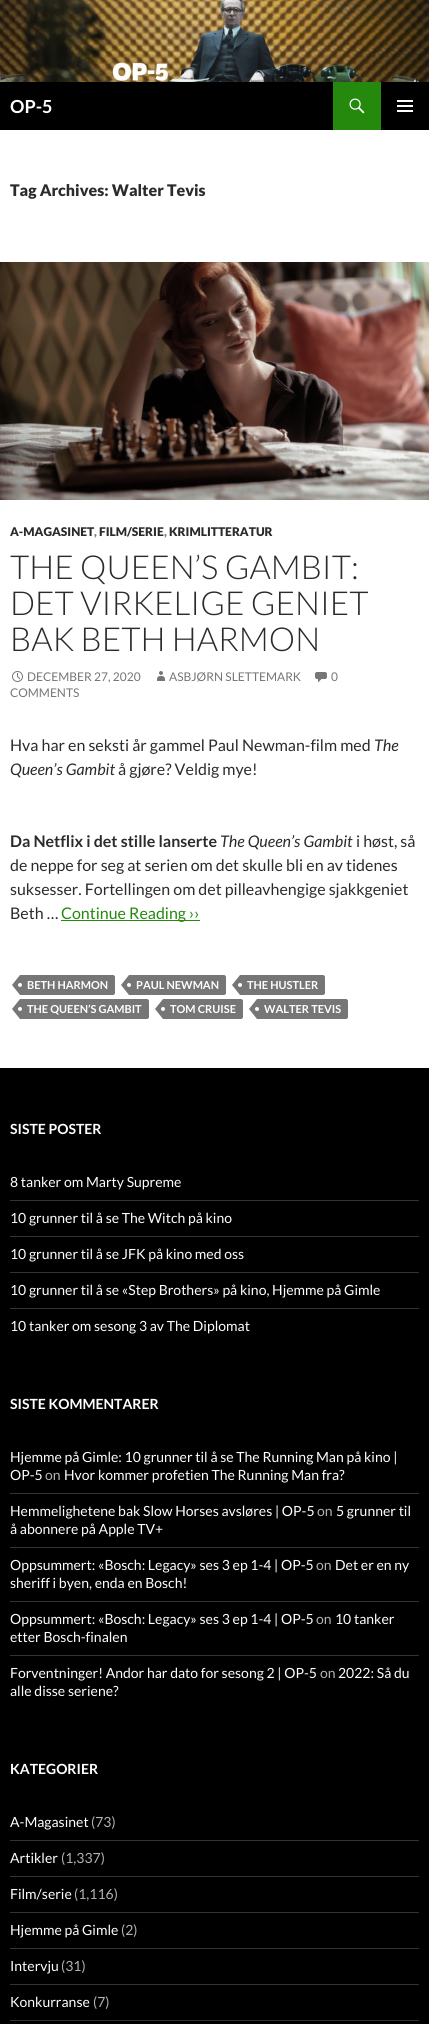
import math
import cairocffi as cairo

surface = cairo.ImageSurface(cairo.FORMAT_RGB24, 429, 2024)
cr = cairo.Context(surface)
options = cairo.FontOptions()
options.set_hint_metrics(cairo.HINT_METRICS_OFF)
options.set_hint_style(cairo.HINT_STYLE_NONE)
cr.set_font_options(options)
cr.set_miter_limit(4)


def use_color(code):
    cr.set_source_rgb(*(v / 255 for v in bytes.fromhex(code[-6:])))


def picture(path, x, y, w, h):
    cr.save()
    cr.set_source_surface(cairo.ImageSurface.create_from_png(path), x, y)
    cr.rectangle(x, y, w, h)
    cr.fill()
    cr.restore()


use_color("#ffffff")
cr.paint()
picture("img1.png", 0, 0, 429, 82)
use_color("#000000")
cr.rectangle(0, 82, 429, 48)
cr.fill()
cr.select_font_face("Lato", cairo.FONT_SLANT_NORMAL, cairo.FONT_WEIGHT_BOLD)
cr.set_font_size(18)
use_color("#ffffff")
cr.move_to(10, 113)
cr.show_text("OP-5")
use_color("#24890d")
cr.rectangle(333, 82, 48, 48)
cr.fill()
picture("img2.png", 349, 98, 16, 16)
picture("img3.png", 397, 100, 16, 12)
cr.select_font_face("Lato Black")
cr.set_font_size(16)
use_color("#2b2b2b")
cr.move_to(10, 196)
cr.show_text("Tag Archives: Walter Tevis")
picture("img4.png", 0, 262, 429, 238)
cr.set_font_size(12)
cr.move_to(10, 536)
cr.show_text("A-MAGASINET")
use_color("#767676")
cr.move_to(94, 536)
cr.show_text(",")
use_color("#2b2b2b")
cr.move_to(99, 536)
cr.show_text("FILM/SERIE")
use_color("#767676")
cr.move_to(164, 536)
cr.show_text(",")
use_color("#2b2b2b")
cr.move_to(169, 536)
cr.show_text("KRIMLITTERATUR")
cr.select_font_face("Lato Light")
cr.set_font_size(33)
cr.move_to(10, 579)
cr.show_text("THE QUEEN’S GAMBIT:")
cr.move_to(10, 615)
cr.show_text("DET VIRKELIGE GENIET")
cr.move_to(10, 651)
cr.show_text("BAK BETH HARMON")
picture("img5.png", 315, 672, 12, 11)
cr.select_font_face("Lato")
cr.set_font_size(12)
use_color("#767676")
cr.move_to(331, 681)
cr.show_text("0")
cr.move_to(10, 697)
cr.show_text("COMMENTS")
picture("img6.png", 12, 671, 11, 11)
cr.move_to(27, 681)
cr.show_text("DECEMBER 27, 2020")
picture("img7.png", 157, 671, 8, 10)
cr.move_to(169, 681)
cr.show_text("ASBJØRN SLETTEMARK")
cr.set_font_size(16)
use_color("#2b2b2b")
cr.move_to(10, 751)
cr.show_text("Hva har en seksti år gammel Paul Newman-film med")
cr.select_font_face("Lato", cairo.FONT_SLANT_ITALIC)
cr.move_to(374, 751)
cr.show_text("The")
cr.move_to(10, 775)
cr.show_text("Queen’s Gambit")
cr.select_font_face("Lato")
cr.move_to(118, 775)
cr.show_text("å gjøre? Veldig mye!")
cr.select_font_face("Lato", cairo.FONT_SLANT_NORMAL, cairo.FONT_WEIGHT_BOLD)
cr.move_to(10, 847)
cr.show_text("Da Netflix i det stille lanserte")
cr.select_font_face("Lato", cairo.FONT_SLANT_ITALIC)
cr.move_to(220, 847)
cr.show_text("The Queen’s Gambit")
cr.select_font_face("Lato")
cr.move_to(356, 847)
cr.show_text("i høst, så")
cr.move_to(10, 871)
cr.show_text("de neppe for seg at serien om det skulle bli en av tidenes")
cr.move_to(10, 895)
cr.show_text("suksesser. Fortellingen om det pilleavhengige sjakkgeniet")
cr.move_to(10, 919)
cr.show_text("Beth …")
use_color("#24890d")
cr.rectangle(61, 920, 139, 1)
cr.fill()
cr.move_to(61, 919)
cr.show_text("Continue Reading ››")
use_color("#767676")
cr.new_path()
cr.move_to(20, 975)
cr.line_to(113, 975)
cr.curve_to(114, 975, 115, 976, 115, 977)
cr.line_to(115, 993)
cr.curve_to(115, 994, 114, 995, 113, 995)
cr.line_to(20, 995)
cr.close_path()
cr.fill()
cr.new_path()
cr.move_to(20, 975)
cr.line_to(20, 995)
cr.line_to(12, 985)
cr.close_path()
cr.fill()
cr.select_font_face("Lato", cairo.FONT_SLANT_NORMAL, cairo.FONT_WEIGHT_BOLD)
cr.set_font_size(11)
use_color("#ffffff")
cr.move_to(27, 989)
cr.show_text("BETH HARMON")
cr.new_path()
cr.arc(20, 985, 2, 0, 2 * math.pi)
cr.fill()
use_color("#767676")
cr.new_path()
cr.move_to(129, 975)
cr.line_to(224, 975)
cr.curve_to(225, 975, 226, 976, 226, 977)
cr.line_to(226, 993)
cr.curve_to(226, 994, 225, 995, 224, 995)
cr.line_to(129, 995)
cr.close_path()
cr.fill()
cr.new_path()
cr.move_to(129, 975)
cr.line_to(129, 995)
cr.line_to(121, 985)
cr.close_path()
cr.fill()
use_color("#ffffff")
cr.move_to(136, 989)
cr.show_text("PAUL NEWMAN")
cr.new_path()
cr.arc(129, 985, 2, 0, 2 * math.pi)
cr.fill()
use_color("#767676")
cr.new_path()
cr.move_to(240, 975)
cr.line_to(323, 975)
cr.curve_to(324, 975, 325, 976, 325, 977)
cr.line_to(325, 993)
cr.curve_to(325, 994, 324, 995, 323, 995)
cr.line_to(240, 995)
cr.close_path()
cr.fill()
cr.new_path()
cr.move_to(240, 975)
cr.line_to(240, 995)
cr.line_to(232, 985)
cr.close_path()
cr.fill()
use_color("#ffffff")
cr.move_to(247, 989)
cr.show_text("THE HUSTLER")
cr.new_path()
cr.arc(240, 985, 2, 0, 2 * math.pi)
cr.fill()
use_color("#767676")
cr.new_path()
cr.move_to(20, 999)
cr.line_to(147, 999)
cr.curve_to(148, 999, 149, 1000, 149, 1001)
cr.line_to(149, 1017)
cr.curve_to(149, 1018, 148, 1019, 147, 1019)
cr.line_to(20, 1019)
cr.close_path()
cr.fill()
cr.new_path()
cr.move_to(20, 999)
cr.line_to(20, 1019)
cr.line_to(12, 1009)
cr.close_path()
cr.fill()
use_color("#ffffff")
cr.move_to(27, 1013)
cr.show_text("THE QUEEN’S GAMBIT")
cr.new_path()
cr.arc(20, 1009, 2, 0, 2 * math.pi)
cr.fill()
use_color("#767676")
cr.new_path()
cr.move_to(163, 999)
cr.line_to(241, 999)
cr.curve_to(242, 999, 243, 1000, 243, 1001)
cr.line_to(243, 1017)
cr.curve_to(243, 1018, 242, 1019, 241, 1019)
cr.line_to(163, 1019)
cr.close_path()
cr.fill()
cr.new_path()
cr.move_to(163, 999)
cr.line_to(163, 1019)
cr.line_to(155, 1009)
cr.close_path()
cr.fill()
use_color("#ffffff")
cr.move_to(170, 1013)
cr.show_text("TOM CRUISE")
cr.new_path()
cr.arc(163, 1009, 2, 0, 2 * math.pi)
cr.fill()
use_color("#767676")
cr.new_path()
cr.move_to(257, 999)
cr.line_to(346, 999)
cr.curve_to(347, 999, 348, 1000, 348, 1001)
cr.line_to(348, 1017)
cr.curve_to(348, 1018, 347, 1019, 346, 1019)
cr.line_to(257, 1019)
cr.close_path()
cr.fill()
cr.new_path()
cr.move_to(257, 999)
cr.line_to(257, 1019)
cr.line_to(249, 1009)
cr.close_path()
cr.fill()
use_color("#ffffff")
cr.move_to(264, 1013)
cr.show_text("WALTER TEVIS")
cr.new_path()
cr.arc(257, 1009, 2, 0, 2 * math.pi)
cr.fill()
use_color("#000000")
cr.rectangle(0, 1068, 429, 956)
cr.fill()
cr.set_font_size(14)
use_color("#ffffff")
cr.move_to(10, 1134)
cr.show_text("SISTE POSTER")
cr.select_font_face("Lato")
cr.move_to(10, 1187)
cr.show_text("8 tanker om Marty Supreme")
use_color("#333333")
cr.rectangle(10, 1200, 409, 1)
cr.fill()
use_color("#ffffff")
cr.move_to(10, 1223)
cr.show_text("10 grunner til å se The Witch på kino")
use_color("#333333")
cr.rectangle(10, 1236, 409, 1)
cr.fill()
use_color("#ffffff")
cr.move_to(10, 1259)
cr.show_text("10 grunner til å se JFK på kino med oss")
use_color("#333333")
cr.rectangle(10, 1272, 409, 1)
cr.fill()
use_color("#ffffff")
cr.move_to(10, 1295)
cr.show_text("10 grunner til å se «Step Brothers» på kino, Hjemme på Gimle")
use_color("#333333")
cr.rectangle(10, 1308, 409, 1)
cr.fill()
use_color("#ffffff")
cr.move_to(10, 1331)
cr.show_text("10 tanker om sesong 3 av The Diplomat")
cr.select_font_face("Lato", cairo.FONT_SLANT_NORMAL, cairo.FONT_WEIGHT_BOLD)
cr.move_to(10, 1409)
cr.show_text("SISTE KOMMENTARER")
cr.select_font_face("Lato")
cr.move_to(10, 1462)
cr.show_text("Hjemme på Gimle: 10 grunner til å se The Running Man på kino |")
cr.move_to(10, 1480)
cr.show_text("OP-5")
use_color("#b3b3b3")
cr.move_to(45, 1480)
cr.show_text("on")
use_color("#ffffff")
cr.move_to(64, 1480)
cr.show_text("Hvor kommer profetien The Running Man fra?")
use_color("#333333")
cr.rectangle(10, 1493, 409, 1)
cr.fill()
use_color("#ffffff")
cr.move_to(10, 1516)
cr.show_text("Hemmelighetene bak Slow Horses avsløres | OP-5")
use_color("#b3b3b3")
cr.move_to(317, 1516)
cr.show_text("on")
use_color("#ffffff")
cr.move_to(336, 1516)
cr.show_text("5 grunner til")
cr.move_to(10, 1534)
cr.show_text("å abonnere på Apple TV+")
use_color("#333333")
cr.rectangle(10, 1547, 409, 1)
cr.fill()
use_color("#ffffff")
cr.move_to(10, 1570)
cr.show_text("Oppsummert: «Bosch: Legacy» ses 3 ep 1-4 | OP-5")
use_color("#b3b3b3")
cr.move_to(316, 1570)
cr.show_text("on")
use_color("#ffffff")
cr.move_to(335, 1570)
cr.show_text("Det er en ny")
cr.move_to(10, 1588)
cr.show_text("sheriff i byen, enda en Bosch!")
use_color("#333333")
cr.rectangle(10, 1601, 409, 1)
cr.fill()
use_color("#ffffff")
cr.move_to(10, 1624)
cr.show_text("Oppsummert: «Bosch: Legacy» ses 3 ep 1-4 | OP-5")
use_color("#b3b3b3")
cr.move_to(316, 1624)
cr.show_text("on")
use_color("#ffffff")
cr.move_to(335, 1624)
cr.show_text("10 tanker")
cr.move_to(10, 1642)
cr.show_text("etter Bosch-finalen")
use_color("#333333")
cr.rectangle(10, 1655, 409, 1)
cr.fill()
use_color("#ffffff")
cr.move_to(10, 1678)
cr.show_text("Forventninger! Andor har dato for sesong 2 | OP-5")
use_color("#b3b3b3")
cr.move_to(320, 1678)
cr.show_text("on")
use_color("#ffffff")
cr.move_to(338, 1678)
cr.show_text("2022: Så du")
cr.move_to(10, 1696)
cr.show_text("alle disse seriene?")
cr.select_font_face("Lato", cairo.FONT_SLANT_NORMAL, cairo.FONT_WEIGHT_BOLD)
cr.move_to(10, 1774)
cr.show_text("KATEGORIER")
cr.select_font_face("Lato")
cr.move_to(10, 1827)
cr.show_text("A-Magasinet")
use_color("#b3b3b3")
cr.move_to(91, 1827)
cr.show_text("(73)")
use_color("#333333")
cr.rectangle(10, 1840, 409, 1)
cr.fill()
use_color("#ffffff")
cr.move_to(10, 1863)
cr.show_text("Artikler")
use_color("#b3b3b3")
cr.move_to(61, 1863)
cr.show_text("(1,337)")
use_color("#333333")
cr.rectangle(10, 1876, 409, 1)
cr.fill()
use_color("#ffffff")
cr.move_to(10, 1899)
cr.show_text("Film/serie")
use_color("#b3b3b3")
cr.move_to(74, 1899)
cr.show_text("(1,116)")
use_color("#333333")
cr.rectangle(10, 1912, 409, 1)
cr.fill()
use_color("#ffffff")
cr.move_to(10, 1935)
cr.show_text("Hjemme på Gimle")
use_color("#b3b3b3")
cr.move_to(121, 1935)
cr.show_text("(2)")
use_color("#333333")
cr.rectangle(10, 1948, 409, 1)
cr.fill()
use_color("#ffffff")
cr.move_to(10, 1971)
cr.show_text("Intervju")
use_color("#b3b3b3")
cr.move_to(61, 1971)
cr.show_text("(31)")
use_color("#333333")
cr.rectangle(10, 1984, 409, 1)
cr.fill()
use_color("#ffffff")
cr.move_to(10, 2007)
cr.show_text("Konkurranse")
use_color("#b3b3b3")
cr.move_to(93, 2007)
cr.show_text("(7)")
use_color("#333333")
cr.rectangle(10, 2020, 409, 1)
cr.fill()
surface.write_to_png("result.png")
